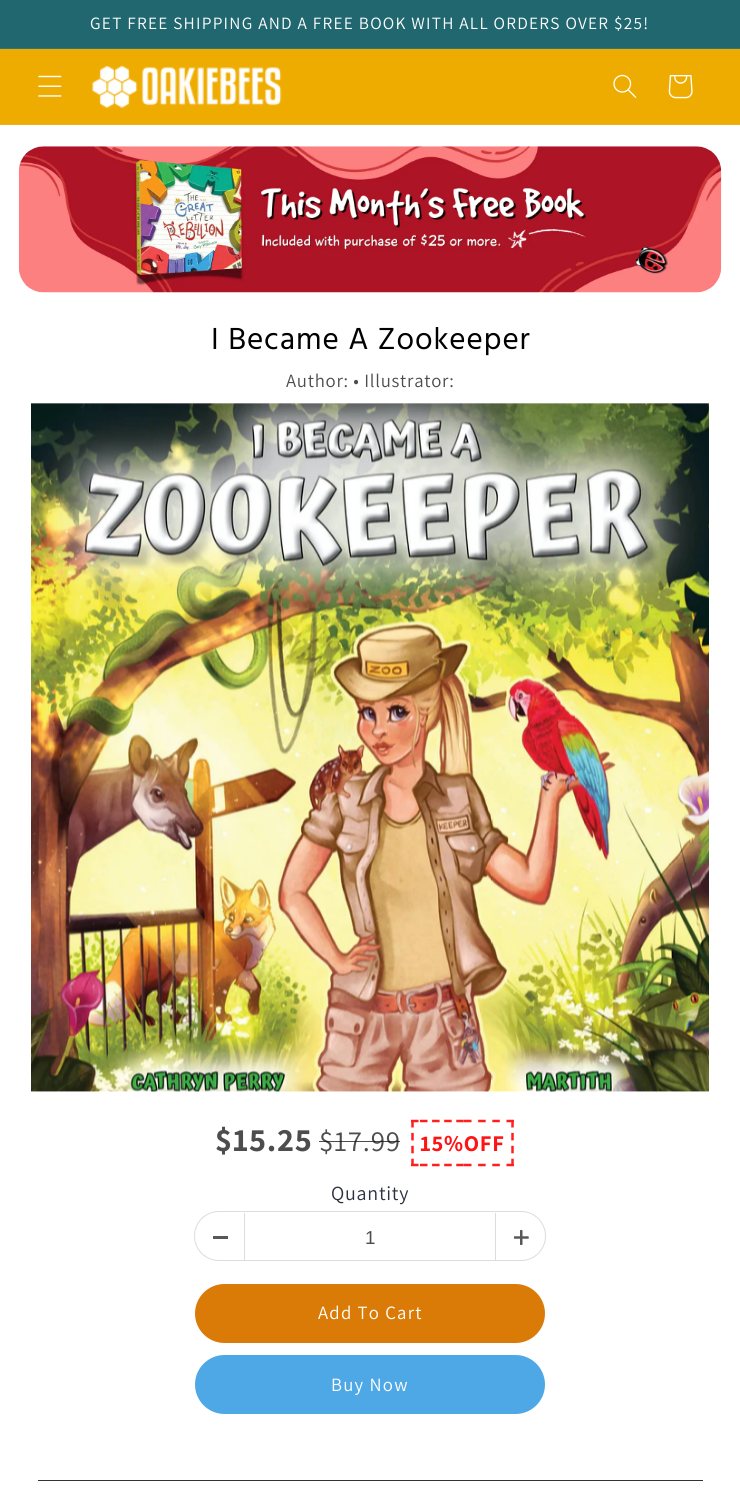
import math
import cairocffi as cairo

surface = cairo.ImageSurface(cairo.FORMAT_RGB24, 740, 1499)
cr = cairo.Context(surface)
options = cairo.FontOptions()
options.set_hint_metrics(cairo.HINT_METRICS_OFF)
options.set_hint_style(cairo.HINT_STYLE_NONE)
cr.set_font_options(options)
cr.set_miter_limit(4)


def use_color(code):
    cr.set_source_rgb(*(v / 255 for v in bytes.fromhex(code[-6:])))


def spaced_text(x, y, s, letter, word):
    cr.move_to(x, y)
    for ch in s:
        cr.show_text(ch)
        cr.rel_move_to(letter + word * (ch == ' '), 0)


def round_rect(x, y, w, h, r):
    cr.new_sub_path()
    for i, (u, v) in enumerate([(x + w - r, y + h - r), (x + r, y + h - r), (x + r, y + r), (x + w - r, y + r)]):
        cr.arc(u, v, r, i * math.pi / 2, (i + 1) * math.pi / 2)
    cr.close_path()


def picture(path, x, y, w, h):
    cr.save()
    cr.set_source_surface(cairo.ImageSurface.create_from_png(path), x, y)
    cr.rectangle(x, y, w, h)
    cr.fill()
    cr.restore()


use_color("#ffffff")
cr.paint()
use_color("#206770")
cr.rectangle(0, 0, 740, 48)
cr.fill()
use_color("#32737b")
cr.rectangle(0, 48, 740, 1)
cr.fill()
cr.select_font_face("Assistant")
cr.set_font_size(17.25)
use_color("#ffffff")
spaced_text(90, 29, "GET FREE SHIPPING AND A FREE BOOK WITH ALL ORDERS OVER $25!", 1.25, 0)
use_color("#efac00")
cr.rectangle(0, 49, 740, 75)
cr.fill()
use_color("#f0b314")
cr.rectangle(0, 124, 740, 1)
cr.fill()
picture("img1.png", 38, 75, 24, 22)
picture("img2.png", 92, 65, 190, 44)
picture("img3.png", 613, 74, 24, 24)
picture("img4.png", 668, 75, 25, 24)
picture("img5.png", 18, 146, 704, 147)
cr.select_font_face("Hind")
cr.set_font_size(31.25)
use_color("#000000")
spaced_text(211, 349, "I Became A Zookeeper", 0.9, 0)
cr.select_font_face("Assistant")
cr.set_font_size(18.75)
use_color("#4d4d4d")
spaced_text(286, 387, "Author: • Illustrator:", 0.75, 0)
picture("img6.png", 31, 403, 678, 689)
picture("img7.png", 31, 403, 678, 689)
cr.select_font_face("Assistant", cairo.FONT_SLANT_NORMAL, cairo.FONT_WEIGHT_BOLD)
cr.set_font_size(32.5)
spaced_text(215, 1151, "$15.25", 0.75, 0)
cr.select_font_face("Assistant")
cr.set_font_size(29)
spaced_text(319, 1151, "$17.99", 0.75, 0)
cr.set_source_rgba(0.071, 0.071, 0.071, 0.75)
cr.rectangle(319, 1141, 81, 1)
cr.fill()
cr.new_path()
cr.move_to(420, 1121)
cr.line_to(464, 1121)
cr.move_to(420, 1165)
cr.line_to(464, 1165)
use_color("#ff1e1e")
cr.set_line_width(2.5)
cr.set_dash([7.5, 4.59])
cr.stroke()
cr.select_font_face("Assistant", cairo.FONT_SLANT_NORMAL, cairo.FONT_WEIGHT_BOLD)
cr.set_font_size(22.5)
use_color("#ff1414")
spaced_text(420, 1151, "15%OFF", 0.75, 0)
cr.new_path()
cr.move_to(411, 1121)
cr.line_to(418.5, 1121)
cr.move_to(411, 1165)
cr.line_to(418.5, 1165)
use_color("#ff1e1e")
cr.set_dash([])
cr.stroke()
cr.new_path()
cr.move_to(412.5, 1120)
cr.line_to(412.5, 1166)
cr.set_dash([7.5, 5.41])
cr.stroke()
cr.new_path()
cr.move_to(464, 1121)
cr.line_to(514, 1121)
cr.set_dash([7.5, 6.66])
cr.stroke()
cr.new_path()
cr.move_to(512.5, 1120)
cr.line_to(512.5, 1166)
cr.set_dash([7.5, 5.41])
cr.stroke()
cr.new_path()
cr.move_to(464, 1165)
cr.line_to(514, 1165)
cr.set_dash([7.5, 6.66])
cr.stroke()
cr.select_font_face("Assistant")
cr.set_font_size(20)
use_color("#2d313f")
spaced_text(331, 1200, "Quantity", 0.75, 0)
round_rect(194.5, 1211.5, 351, 49, 24.5)
use_color("#dddcdc")
cr.set_line_width(1)
cr.set_dash([])
cr.stroke()
cr.rectangle(244, 1213, 1, 47)
cr.fill()
use_color("#585858")
cr.rectangle(213, 1236, 15, 3)
cr.fill()
cr.select_font_face("Liberation Sans")
cr.set_font_size(18.75)
use_color("#4d4d4d")
cr.move_to(365, 1244)
cr.show_text("1")
use_color("#dddcdc")
cr.rectangle(495, 1213, 1, 47)
cr.fill()
picture("img8.png", 514, 1230, 15, 15)
use_color("#da7b08")
round_rect(195, 1284, 350, 59, 29.5)
cr.fill()
cr.select_font_face("Assistant")
use_color("#ffffff")
spaced_text(318, 1319, "Add To Cart", 1.25, 0)
use_color("#4ea8e6")
round_rect(195, 1355, 350, 59, 29.5)
cr.fill()
use_color("#ffffff")
spaced_text(331, 1391, "Buy Now", 1.25, 0)
use_color("#333333")
cr.rectangle(38, 1480, 665, 1)
cr.fill()
surface.write_to_png("result.png")
